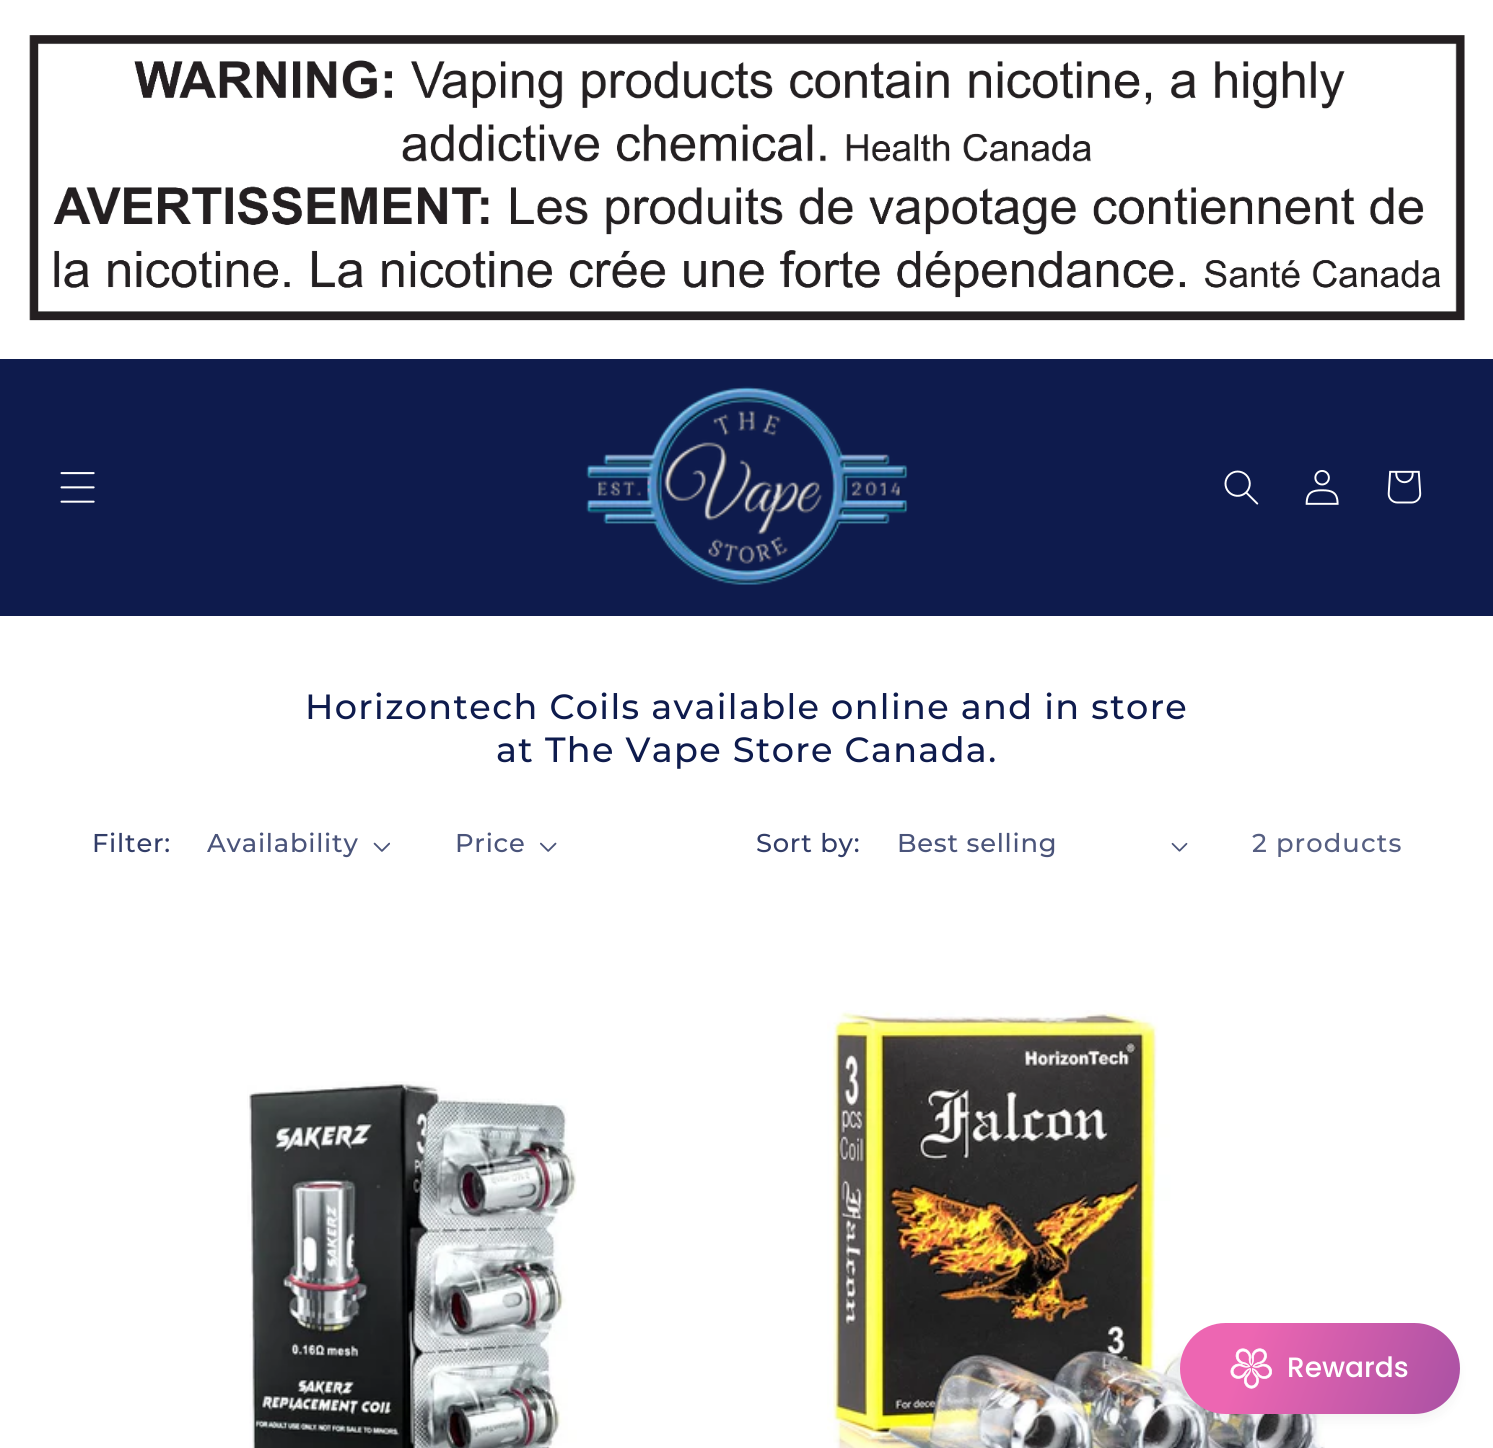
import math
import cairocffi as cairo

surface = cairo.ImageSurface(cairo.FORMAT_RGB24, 1493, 1448)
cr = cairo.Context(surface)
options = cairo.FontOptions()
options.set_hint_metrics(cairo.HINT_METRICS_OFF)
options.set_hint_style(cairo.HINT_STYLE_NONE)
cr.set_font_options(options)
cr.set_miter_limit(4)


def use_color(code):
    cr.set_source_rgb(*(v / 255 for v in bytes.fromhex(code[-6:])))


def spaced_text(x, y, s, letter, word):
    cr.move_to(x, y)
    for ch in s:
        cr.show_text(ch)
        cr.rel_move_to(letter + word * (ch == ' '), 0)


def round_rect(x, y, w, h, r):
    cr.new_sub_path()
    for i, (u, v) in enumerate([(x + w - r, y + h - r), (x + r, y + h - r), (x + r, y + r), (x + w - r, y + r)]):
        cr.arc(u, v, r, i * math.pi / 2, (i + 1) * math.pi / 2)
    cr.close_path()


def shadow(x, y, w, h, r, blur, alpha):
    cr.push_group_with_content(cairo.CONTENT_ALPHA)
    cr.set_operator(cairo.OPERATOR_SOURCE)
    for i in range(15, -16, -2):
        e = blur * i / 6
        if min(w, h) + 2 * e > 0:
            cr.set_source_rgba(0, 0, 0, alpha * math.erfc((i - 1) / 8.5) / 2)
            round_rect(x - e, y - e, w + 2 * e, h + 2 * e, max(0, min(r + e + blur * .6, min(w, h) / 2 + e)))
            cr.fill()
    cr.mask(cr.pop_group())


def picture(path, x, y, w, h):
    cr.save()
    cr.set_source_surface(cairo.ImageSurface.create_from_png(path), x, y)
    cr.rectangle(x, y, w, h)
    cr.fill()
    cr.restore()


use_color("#ffffff")
cr.paint()
picture("img1.png", 29, 35, 1436, 286)
use_color("#0e1b4d")
cr.rectangle(0, 359, 1493, 257)
cr.fill()
picture("img2.png", 60, 472, 35, 31)
picture("img3.png", 586, 386, 322, 199)
picture("img4.png", 1224, 470, 35, 35)
picture("img5.png", 1305, 470, 34, 35)
picture("img6.png", 1387, 470, 35, 34)
cr.select_font_face("Montserrat Medium")
cr.set_font_size(35)
spaced_text(305, 719, "Horizontech Coils available online and in store", 1.35, 0)
spaced_text(496, 762, "at The Vape Store Canada.", 1.35, 0)
cr.set_font_size(25.75)
use_color("#323d68")
spaced_text(92, 852, "Filter:", 0.75, 0)
use_color("#4a547a")
spaced_text(207, 852, "Availability", 0.75, 0)
picture("img7.png", 373, 842, 17, 10)
spaced_text(455, 852, "Price", 0.75, 0)
picture("img8.png", 540, 842, 17, 10)
use_color("#323d68")
spaced_text(756, 852, "Sort by:", 0.75, 0)
use_color("#4a547a")
spaced_text(897, 852, "Best selling", 0.75, 0)
picture("img9.png", 1171, 842, 17, 10)
use_color("#565f82")
spaced_text(1252, 852, "2 products", 1.1, 0)
picture("img10.png", 247, 1081, 330, 367)
picture("img11.png", 827, 1010, 498, 438)
use_color("#444444")
shadow(1183, 1334, 273, 84, 42, 7, 0.08)
gradient = cairo.LinearGradient(1181, 1319, 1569, 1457)
gradient.add_color_stop_rgba(0.17, 0.929, 0.4, 0.698, 1)
gradient.add_color_stop_rgba(1, 0.525, 0.275, 0.612, 1)
cr.set_source(gradient)
round_rect(1180, 1323, 280, 91, 45.5)
cr.fill()
picture("img12.png", 1230, 1348, 42, 41)
cr.select_font_face("Poppins Medium")
cr.set_font_size(28)
use_color("#ffffff")
cr.move_to(1287, 1377)
cr.show_text("Rewards")
surface.write_to_png("result.png")
